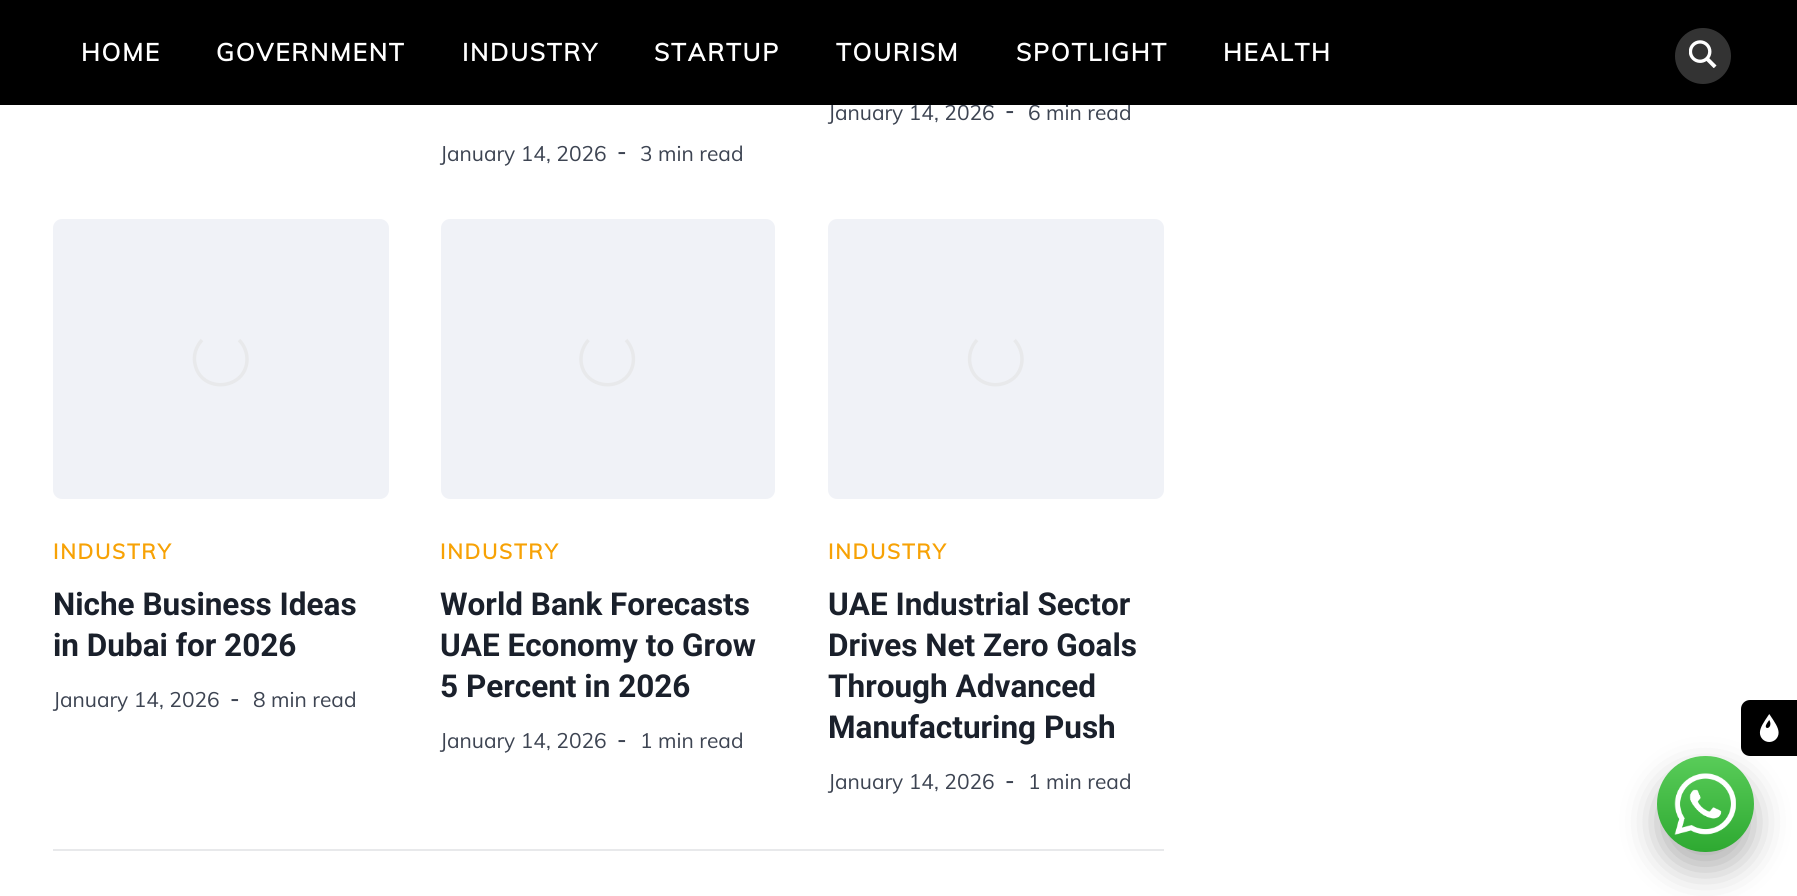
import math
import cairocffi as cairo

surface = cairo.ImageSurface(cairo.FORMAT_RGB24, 1797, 896)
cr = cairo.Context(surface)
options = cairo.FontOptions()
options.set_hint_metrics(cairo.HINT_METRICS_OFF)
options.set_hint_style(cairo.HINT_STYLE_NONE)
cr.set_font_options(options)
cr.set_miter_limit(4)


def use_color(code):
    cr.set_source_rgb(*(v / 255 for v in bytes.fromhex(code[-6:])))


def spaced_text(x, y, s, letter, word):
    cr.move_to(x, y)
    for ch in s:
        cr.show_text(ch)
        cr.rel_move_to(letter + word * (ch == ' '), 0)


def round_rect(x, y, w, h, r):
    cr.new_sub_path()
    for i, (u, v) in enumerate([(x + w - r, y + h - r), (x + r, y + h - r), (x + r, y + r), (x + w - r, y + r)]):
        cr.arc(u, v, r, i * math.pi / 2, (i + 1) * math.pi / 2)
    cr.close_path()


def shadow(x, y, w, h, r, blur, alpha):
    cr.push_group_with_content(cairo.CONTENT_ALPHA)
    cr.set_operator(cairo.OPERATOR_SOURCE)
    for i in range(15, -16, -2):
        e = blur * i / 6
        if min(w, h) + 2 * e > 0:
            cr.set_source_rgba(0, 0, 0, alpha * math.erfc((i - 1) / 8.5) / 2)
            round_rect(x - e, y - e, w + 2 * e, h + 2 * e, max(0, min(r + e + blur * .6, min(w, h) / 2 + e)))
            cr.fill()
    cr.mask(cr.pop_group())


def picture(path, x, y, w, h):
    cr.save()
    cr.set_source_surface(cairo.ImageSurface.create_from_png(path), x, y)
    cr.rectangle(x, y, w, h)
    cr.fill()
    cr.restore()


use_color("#ffffff")
cr.paint()
cr.select_font_face("Muli")
cr.set_font_size(21)
use_color("#3d4452")
cr.move_to(828, 120)
cr.show_text("January 14, 2026")
cr.move_to(1028, 120)
cr.show_text("6 min read")
use_color("#000000")
cr.rectangle(0, 0, 1797, 105)
cr.fill()
cr.select_font_face("Muli", cairo.FONT_SLANT_NORMAL, cairo.FONT_WEIGHT_BOLD)
cr.set_font_size(24.5)
use_color("#ffffff")
spaced_text(81, 61, "HOME", 1.75, 0)
spaced_text(216, 61, "GOVERNMENT", 1.75, 0)
spaced_text(462, 61, "INDUSTRY", 1.75, 0)
spaced_text(654, 61, "STARTUP", 1.75, 0)
spaced_text(836, 61, "TOURISM", 1.75, 0)
spaced_text(1016, 61, "SPOTLIGHT", 1.75, 0)
spaced_text(1223, 61, "HEALTH", 1.75, 0)
use_color("#333333")
cr.new_path()
cr.arc(1703, 56, 28, 0, 2 * math.pi)
cr.fill()
picture("img1.png", 1689, 40, 28, 28)
use_color("#e8e9eb")
cr.rectangle(53, 849, 1111, 2)
cr.fill()
cr.set_font_size(21)
use_color("#3d4452")
cr.move_to(1005, 118)
cr.show_text("-")
cr.select_font_face("Muli")
cr.move_to(440, 161)
cr.show_text("January 14, 2026")
cr.select_font_face("Muli", cairo.FONT_SLANT_NORMAL, cairo.FONT_WEIGHT_BOLD)
cr.move_to(617, 159)
cr.show_text("-")
cr.select_font_face("Muli")
cr.move_to(640, 161)
cr.show_text("3 min read")
use_color("#f0f2f7")
round_rect(53, 219, 336, 280, 9)
cr.fill()
cr.new_path()
cr.move_to(239, 340)
cr.curve_to(244, 345, 247, 352, 247, 359)
cr.curve_to(247, 390, 201, 394.5, 195, 364)
cr.curve_to(193, 355.5, 196, 346.5, 202, 340)
use_color("#e8e9eb")
cr.set_line_width(3.5)
cr.stroke()
cr.select_font_face("Muli", cairo.FONT_SLANT_NORMAL, cairo.FONT_WEIGHT_BOLD)
use_color("#f7a205")
spaced_text(53, 559, "INDUSTRY", 1.75, 0)
cr.select_font_face("Roboto", cairo.FONT_SLANT_NORMAL, cairo.FONT_WEIGHT_BOLD)
cr.set_font_size(31.5)
use_color("#1a202b")
cr.move_to(53, 615)
cr.show_text("Niche Business Ideas")
cr.move_to(53, 656)
cr.show_text("in Dubai for 2026")
cr.select_font_face("Muli")
cr.set_font_size(21)
use_color("#3d4452")
cr.move_to(53, 707)
cr.show_text("January 14, 2026")
cr.select_font_face("Muli", cairo.FONT_SLANT_NORMAL, cairo.FONT_WEIGHT_BOLD)
cr.move_to(230, 706)
cr.show_text("-")
cr.select_font_face("Muli")
cr.move_to(253, 707)
cr.show_text("8 min read")
use_color("#f0f2f7")
round_rect(441, 219, 334, 280, 9)
cr.fill()
cr.new_path()
cr.move_to(626, 340)
cr.curve_to(632, 346.5, 634.5, 355.5, 633, 364)
cr.curve_to(627, 394.5, 581, 390, 581, 359)
cr.curve_to(581, 352, 584, 345, 588.5, 340)
use_color("#e8e9eb")
cr.stroke()
cr.select_font_face("Muli", cairo.FONT_SLANT_NORMAL, cairo.FONT_WEIGHT_BOLD)
use_color("#f7a205")
spaced_text(440, 559, "INDUSTRY", 1.75, 0)
cr.select_font_face("Roboto", cairo.FONT_SLANT_NORMAL, cairo.FONT_WEIGHT_BOLD)
cr.set_font_size(31.5)
use_color("#1a202b")
cr.move_to(440, 615)
cr.show_text("World Bank Forecasts")
cr.move_to(440, 656)
cr.show_text("UAE Economy to Grow")
cr.move_to(440, 697)
cr.show_text("5 Percent in 2026")
cr.select_font_face("Muli")
cr.set_font_size(21)
use_color("#3d4452")
cr.move_to(440, 748)
cr.show_text("January 14, 2026")
cr.select_font_face("Muli", cairo.FONT_SLANT_NORMAL, cairo.FONT_WEIGHT_BOLD)
cr.move_to(617, 747)
cr.show_text("-")
cr.select_font_face("Muli")
cr.move_to(640, 748)
cr.show_text("1 min read")
use_color("#f0f2f7")
round_rect(828, 219, 336, 280, 9)
cr.fill()
cr.new_path()
cr.move_to(1014.5, 340)
cr.curve_to(1019, 345, 1022, 352, 1022, 359)
cr.curve_to(1022, 390, 976, 394.5, 970, 364)
cr.curve_to(968.5, 355.5, 971, 346.5, 977, 340)
use_color("#e8e9eb")
cr.stroke()
cr.select_font_face("Muli", cairo.FONT_SLANT_NORMAL, cairo.FONT_WEIGHT_BOLD)
use_color("#f7a205")
spaced_text(828, 559, "INDUSTRY", 1.75, 0)
cr.select_font_face("Roboto", cairo.FONT_SLANT_NORMAL, cairo.FONT_WEIGHT_BOLD)
cr.set_font_size(31.5)
use_color("#1a202b")
cr.move_to(828, 615)
cr.show_text("UAE Industrial Sector")
cr.move_to(828, 656)
cr.show_text("Drives Net Zero Goals")
cr.move_to(828, 697)
cr.show_text("Through Advanced")
cr.move_to(828, 738)
cr.show_text("Manufacturing Push")
cr.select_font_face("Muli")
cr.set_font_size(21)
use_color("#3d4452")
cr.move_to(828, 789)
cr.show_text("January 14, 2026")
cr.select_font_face("Muli", cairo.FONT_SLANT_NORMAL, cairo.FONT_WEIGHT_BOLD)
cr.move_to(1005, 788)
cr.show_text("-")
cr.select_font_face("Muli")
cr.move_to(1028, 789)
cr.show_text("1 min read")
use_color("#000000")
cr.new_path()
cr.move_to(1750, 700)
cr.line_to(1797, 700)
cr.line_to(1797, 756)
cr.line_to(1750, 756)
cr.curve_to(1745, 756, 1741, 752, 1741, 747)
cr.line_to(1741, 709)
cr.curve_to(1741, 704, 1745, 700, 1750, 700)
cr.close_path()
cr.fill()
picture("img2.png", 1759, 714, 20, 28)
use_color("#000000")
shadow(1657, 774, 97, 96, 48, 17.5, 0.3)
gradient = cairo.LinearGradient(1705, 756, 1705, 852)
gradient.add_color_stop_rgba(0, 0.349, 0.8, 0.349, 1)
gradient.add_color_stop_rgba(1, 0.18, 0.663, 0.192, 1)
cr.set_source(gradient)
round_rect(1657, 756, 97, 96, 48)
cr.fill()
picture("img3.png", 1674, 773, 62, 62)
surface.write_to_png("result.png")
